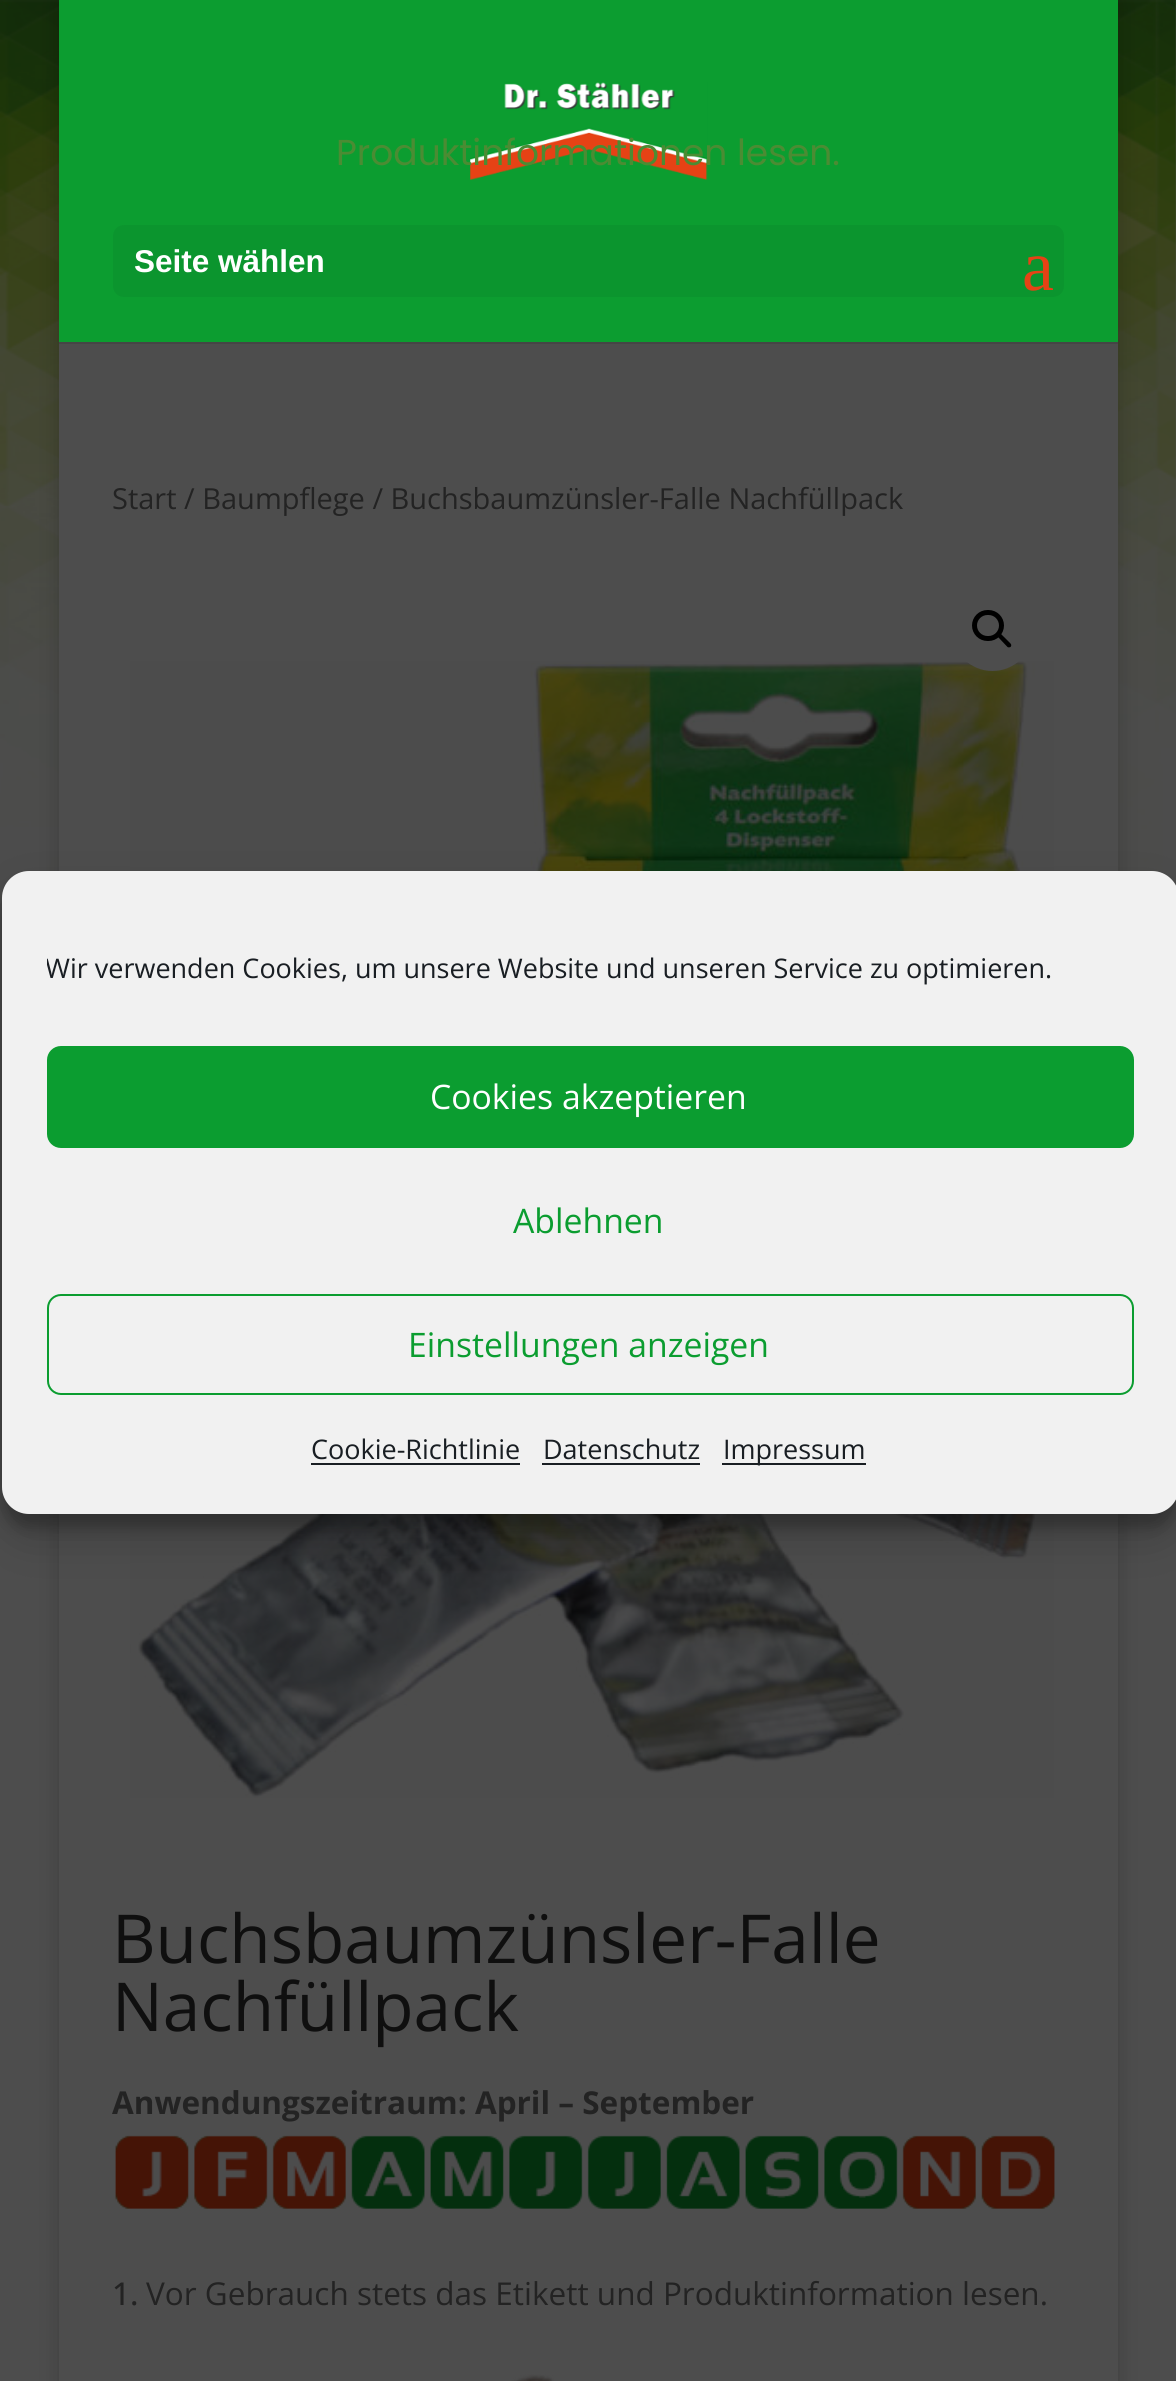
import math
import cairocffi as cairo

surface = cairo.ImageSurface(cairo.FORMAT_RGB24, 1176, 2381)
cr = cairo.Context(surface)
options = cairo.FontOptions()
options.set_hint_metrics(cairo.HINT_METRICS_OFF)
options.set_hint_style(cairo.HINT_STYLE_NONE)
cr.set_font_options(options)
cr.set_miter_limit(4)


def use_color(code):
    cr.set_source_rgb(*(v / 255 for v in bytes.fromhex(code[-6:])))


def round_rect(x, y, w, h, r):
    cr.new_sub_path()
    for i, (u, v) in enumerate([(x + w - r, y + h - r), (x + r, y + h - r), (x + r, y + r), (x + w - r, y + r)]):
        cr.arc(u, v, r, i * math.pi / 2, (i + 1) * math.pi / 2)
    cr.close_path()


def shadow(x, y, w, h, r, blur, alpha):
    cr.push_group_with_content(cairo.CONTENT_ALPHA)
    cr.set_operator(cairo.OPERATOR_SOURCE)
    for i in range(15, -16, -2):
        e = blur * i / 6
        if min(w, h) + 2 * e > 0:
            cr.set_source_rgba(0, 0, 0, alpha * math.erfc((i - 1) / 8.5) / 2)
            round_rect(x - e, y - e, w + 2 * e, h + 2 * e, max(0, min(r + e + blur * .6, min(w, h) / 2 + e)))
            cr.fill()
    cr.mask(cr.pop_group())


def picture(path, x, y, w, h):
    cr.save()
    cr.set_source_surface(cairo.ImageSurface.create_from_png(path), x, y)
    cr.rectangle(x, y, w, h)
    cr.fill()
    cr.restore()


use_color("#4d4d4d")
cr.paint()
picture("img1.png", 0, 0, 1176, 1011)
use_color("#000000")
shadow(59, 0, 1059, 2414, 0, 11, 0.2)
use_color("#0c9d30")
cr.rectangle(59, 0, 1059, 342)
cr.fill()
picture("img2.png", 470, 82, 238, 98)
cr.select_font_face("Poppins")
cr.set_font_size(36)
use_color("#4b8c33")
cr.move_to(336, 165)
cr.show_text("Produktinformationen lesen.")
use_color("#454545")
cr.rectangle(59, 342, 1059, 2)
cr.fill()
use_color("#0b952e")
round_rect(113, 225, 951, 72, 11)
cr.fill()
cr.select_font_face("Liberation Sans", cairo.FONT_SLANT_NORMAL, cairo.FONT_WEIGHT_BOLD)
cr.set_font_size(31.5)
use_color("#ffffff")
cr.move_to(134, 272)
cr.show_text("Seite wählen")
cr.select_font_face("Liberation Serif")
cr.set_font_size(72)
use_color("#e64215")
cr.move_to(1022, 290)
cr.show_text("a")
use_color("#4d4d4d")
cr.rectangle(59, 344, 1059, 2037)
cr.fill()
cr.select_font_face("Open Sans")
cr.set_font_size(29)
use_color("#232323")
cr.move_to(112, 509)
cr.show_text("Start / Baumpflege / Buchsbaumzünsler-Falle Nachfüllpack")
picture("img3.png", 130, 661, 924, 1137)
use_color("#4d4d4d")
cr.arc(992.5, 630.5, 40.5, 0, 2 * math.pi)
cr.fill()
round_rect(974.5, 612.5, 27, 26, 13)
use_color("#000000")
cr.set_line_width(5)
cr.stroke()
cr.new_path()
cr.move_to(998, 634)
cr.curve_to(998.5, 633, 1000, 633, 1001, 634)
cr.line_to(1010.5, 643.5)
cr.curve_to(1011.5, 644.5, 1011.5, 646, 1010.5, 647)
cr.curve_to(1009.5, 647.5, 1008, 647.5, 1007.5, 647)
cr.line_to(998, 637)
cr.curve_to(997, 636.5, 997, 635, 998, 634)
cr.close_path()
cr.fill()
cr.set_font_size(67.5)
use_color("#0f0f0f")
cr.move_to(112, 1963)
cr.show_text("Buchsbaumzünsler-Falle")
cr.move_to(112, 2031)
cr.show_text("Nachfüllpack")
cr.select_font_face("Open Sans", cairo.FONT_SLANT_NORMAL, cairo.FONT_WEIGHT_BOLD)
cr.set_font_size(31.5)
use_color("#232323")
cr.move_to(112, 2114)
cr.show_text("Anwendungszeitraum: April – September")
picture("img4.png", 115, 2135, 74, 74)
picture("img5.png", 194, 2135, 74, 74)
picture("img6.png", 272, 2135, 74, 74)
picture("img7.png", 351, 2135, 74, 74)
picture("img8.png", 430, 2135, 74, 74)
picture("img9.png", 509, 2135, 74, 74)
picture("img10.png", 587, 2135, 74, 74)
picture("img7.png", 666, 2135, 74, 74)
picture("img11.png", 745, 2135, 74, 74)
picture("img12.png", 824, 2135, 74, 74)
picture("img13.png", 902, 2135, 74, 74)
picture("img14.png", 981, 2135, 74, 74)
cr.select_font_face("Open Sans Medium")
cr.move_to(112, 2305)
cr.show_text("1.")
cr.select_font_face("Open Sans")
cr.move_to(146, 2305)
cr.show_text("Vor Gebrauch stets das Etikett und Produktinformation lesen.")
picture("img15.png", 510, 2374, 44, 7)
use_color("#000000")
shadow(2, 884, 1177, 644, 27, 7, 0.23)
shadow(2, 893, 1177, 644, 27, 22.5, 0.19)
use_color("#f1f1f1")
round_rect(2, 871, 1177, 643, 27)
cr.fill()
cr.save()
cr.rectangle(47, 950, 1087, 51)
cr.clip()
cr.set_font_size(27)
use_color("#191e23")
cr.move_to(45, 978)
cr.show_text("Wir verwenden Cookies, um unsere Website und unseren Service zu optimieren.")
cr.restore()
use_color("#0b9d30")
round_rect(48, 1047, 1085, 100, 13)
cr.fill_preserve()
cr.set_line_width(2)
cr.stroke()
cr.set_font_size(33.75)
use_color("#ffffff")
cr.move_to(430, 1109)
cr.show_text("Cookies akzeptieren")
use_color("#0b9d30")
cr.move_to(513, 1233)
cr.show_text("Ablehnen")
round_rect(48, 1295, 1085, 99, 13)
cr.stroke()
cr.move_to(408, 1357)
cr.show_text("Einstellungen anzeigen")
cr.set_font_size(27)
use_color("#191e23")
cr.move_to(311, 1459)
cr.show_text("Cookie-Richtlinie")
cr.rectangle(311, 1463, 209, 2)
cr.fill()
cr.move_to(543, 1459)
cr.show_text("Datenschutz")
cr.rectangle(542, 1463, 158, 2)
cr.fill()
cr.rectangle(722, 1463, 144, 2)
cr.fill()
cr.move_to(723, 1459)
cr.show_text("Impressum")
surface.write_to_png("result.png")
